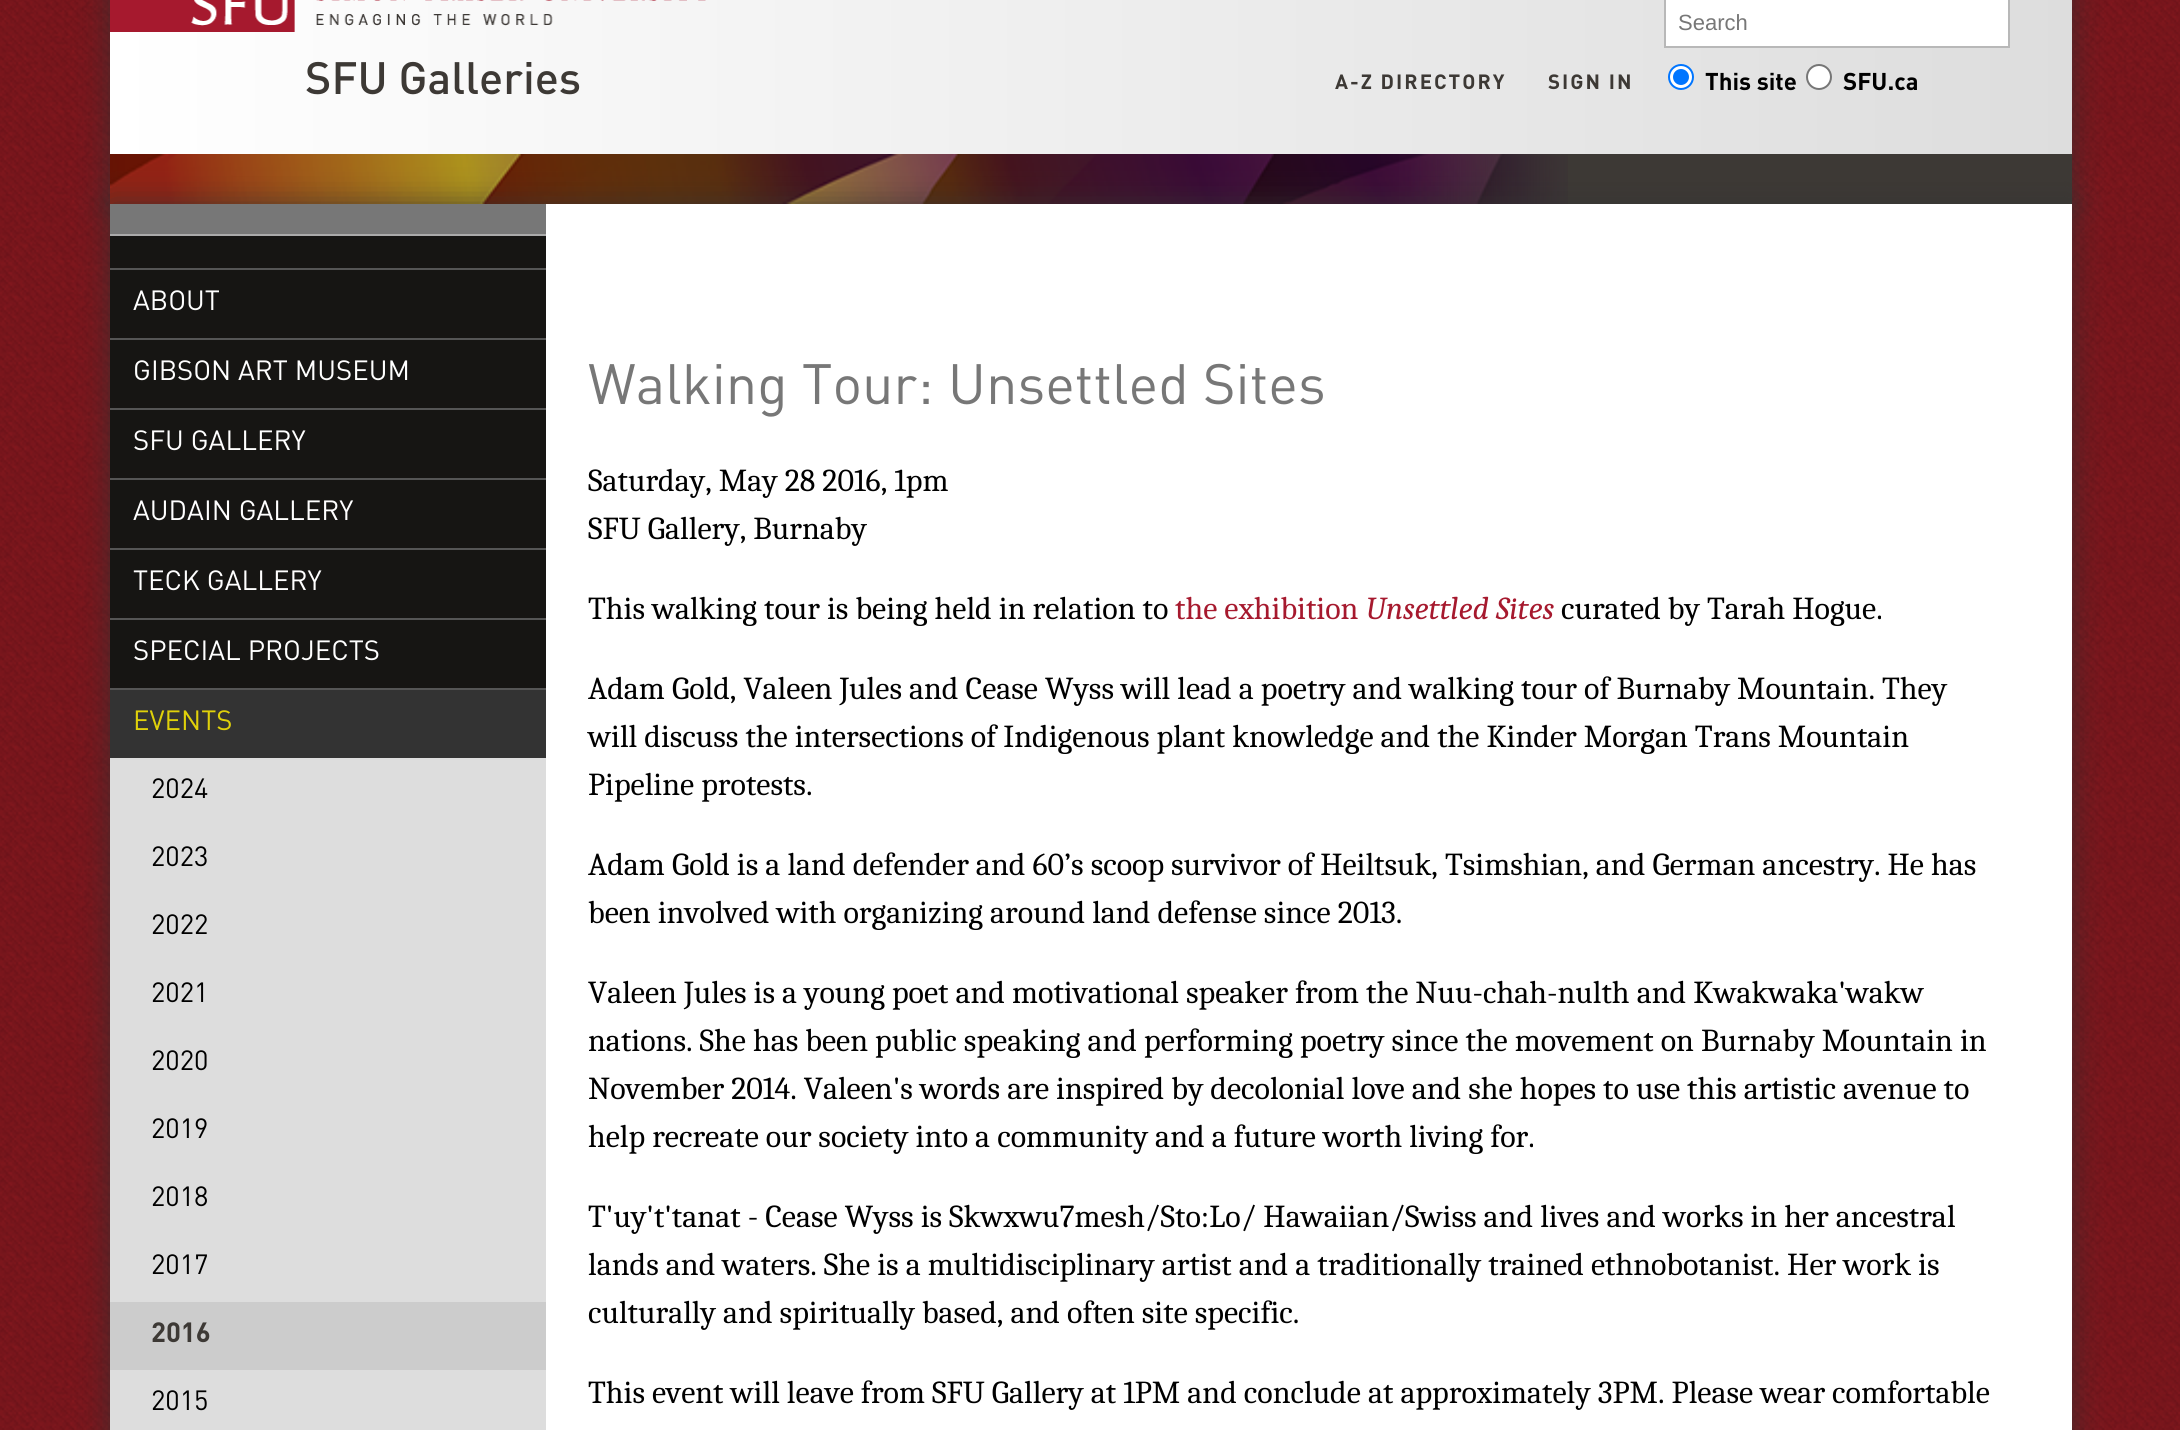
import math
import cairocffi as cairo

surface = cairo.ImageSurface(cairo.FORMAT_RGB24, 2180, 1430)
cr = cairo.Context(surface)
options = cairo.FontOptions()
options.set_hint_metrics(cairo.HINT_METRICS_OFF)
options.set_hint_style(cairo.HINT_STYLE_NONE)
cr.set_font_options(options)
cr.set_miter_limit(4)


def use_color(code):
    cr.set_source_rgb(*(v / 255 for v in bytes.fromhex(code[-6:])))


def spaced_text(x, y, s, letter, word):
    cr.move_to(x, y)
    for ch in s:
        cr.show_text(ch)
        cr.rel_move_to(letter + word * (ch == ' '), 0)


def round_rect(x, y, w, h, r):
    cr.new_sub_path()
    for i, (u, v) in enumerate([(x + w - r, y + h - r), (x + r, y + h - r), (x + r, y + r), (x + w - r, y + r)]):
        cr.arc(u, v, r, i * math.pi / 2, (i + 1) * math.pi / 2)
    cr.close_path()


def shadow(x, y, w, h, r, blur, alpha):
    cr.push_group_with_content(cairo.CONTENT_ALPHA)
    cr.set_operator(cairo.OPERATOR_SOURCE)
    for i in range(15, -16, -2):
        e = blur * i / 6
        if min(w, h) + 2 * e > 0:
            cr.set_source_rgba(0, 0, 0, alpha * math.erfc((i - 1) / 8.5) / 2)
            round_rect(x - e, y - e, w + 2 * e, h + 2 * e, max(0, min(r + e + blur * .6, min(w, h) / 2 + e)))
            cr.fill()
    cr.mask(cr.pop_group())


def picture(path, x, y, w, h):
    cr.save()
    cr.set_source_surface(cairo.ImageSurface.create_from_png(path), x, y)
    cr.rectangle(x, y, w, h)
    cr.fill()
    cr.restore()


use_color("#ffffff")
cr.paint()
picture("img1.png", 0, 0, 2180, 1430)
use_color("#323232")
shadow(110, -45, 1962, 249, 0, 15, 0.75)
gradient = cairo.LinearGradient(110, 31, 2072, 31)
gradient.add_color_stop_rgba(0, 1, 1, 1, 1)
gradient.add_color_stop_rgba(1, 0.867, 0.867, 0.867, 1)
cr.set_source(gradient)
cr.rectangle(110, 0, 1962, 154)
cr.fill()
picture("img2.png", 110, 0, 596, 32)
cr.select_font_face("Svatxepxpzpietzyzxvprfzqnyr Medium")
cr.set_font_size(44.75)
use_color("#3d3935")
cr.move_to(305, 94)
cr.show_text("SFU Galleries")
cr.select_font_face("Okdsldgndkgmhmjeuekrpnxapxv", cairo.FONT_SLANT_NORMAL, cairo.FONT_WEIGHT_BOLD)
cr.set_font_size(20.4)
spaced_text(1335, 89, "A-Z DIRECTORY", 2, 0)
spaced_text(1548, 89, "SIGN IN", 2, 0)
use_color("#ffffff")
cr.rectangle(1665, -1, 344, 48)
cr.fill_preserve()
use_color("#b8b8b8")
cr.stroke()
cr.select_font_face("Liberation Sans")
cr.set_font_size(22)
use_color("#777777")
cr.move_to(1678, 30)
cr.show_text("Search")
use_color("#ffffff")
cr.new_path()
cr.arc(1681, 77, 12, 0, 2 * math.pi)
cr.fill_preserve()
use_color("#0075ff")
cr.stroke()
cr.arc(1681, 77, 8, 0, 2 * math.pi)
cr.fill()
cr.select_font_face("Okdsldgndkgmhmjeuekrpnxapxv", cairo.FONT_SLANT_NORMAL, cairo.FONT_WEIGHT_BOLD)
cr.set_font_size(24)
use_color("#000000")
cr.move_to(1705, 90)
cr.show_text("This site")
use_color("#ffffff")
cr.new_path()
cr.arc(1819, 77, 12, 0, 2 * math.pi)
cr.fill_preserve()
use_color("#767676")
cr.stroke()
use_color("#000000")
cr.move_to(1843, 90)
cr.show_text("SFU.ca")
use_color("#3d3935")
cr.rectangle(1398, 154, 674, 50)
cr.fill()
picture("img3.png", 110, 154, 1458, 50)
use_color("#323232")
shadow(110, 204, 1962, 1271, 0, 15, 0.75)
use_color("#ffffff")
cr.rectangle(546, 204, 1526, 1226)
cr.fill()
use_color("#777777")
cr.rectangle(110, 204, 436, 30)
cr.fill()
use_color("#161513")
cr.rectangle(110, 236, 436, 32)
cr.fill()
use_color("#aaaaaa")
cr.rectangle(110, 234, 436, 2)
cr.fill()
use_color("#555555")
cr.rectangle(110, 268, 436, 2)
cr.fill()
use_color("#161513")
cr.rectangle(110, 270, 436, 68)
cr.fill()
use_color("#555555")
cr.rectangle(110, 338, 436, 2)
cr.fill()
cr.select_font_face("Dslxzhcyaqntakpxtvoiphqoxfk")
cr.set_font_size(27.5)
use_color("#ffffff")
cr.move_to(133, 310)
cr.show_text("ABOUT")
use_color("#161513")
cr.rectangle(110, 340, 436, 68)
cr.fill()
use_color("#555555")
cr.rectangle(110, 408, 436, 2)
cr.fill()
use_color("#ffffff")
cr.move_to(133, 380)
cr.show_text("GIBSON ART MUSEUM")
use_color("#161513")
cr.rectangle(110, 410, 436, 68)
cr.fill()
use_color("#555555")
cr.rectangle(110, 478, 436, 2)
cr.fill()
use_color("#ffffff")
cr.move_to(133, 450)
cr.show_text("SFU GALLERY")
use_color("#161513")
cr.rectangle(110, 480, 436, 68)
cr.fill()
use_color("#555555")
cr.rectangle(110, 548, 436, 2)
cr.fill()
use_color("#ffffff")
cr.move_to(133, 520)
cr.show_text("AUDAIN GALLERY")
use_color("#161513")
cr.rectangle(110, 550, 436, 68)
cr.fill()
use_color("#555555")
cr.rectangle(110, 618, 436, 2)
cr.fill()
use_color("#ffffff")
cr.move_to(133, 590)
cr.show_text("TECK GALLERY")
use_color("#161513")
cr.rectangle(110, 620, 436, 68)
cr.fill()
use_color("#555555")
cr.rectangle(110, 688, 436, 2)
cr.fill()
use_color("#ffffff")
cr.move_to(133, 660)
cr.show_text("SPECIAL PROJECTS")
use_color("#333333")
cr.rectangle(110, 690, 436, 68)
cr.fill()
use_color("#e0d10a")
cr.move_to(133, 730)
cr.show_text("EVENTS")
use_color("#dddddd")
cr.rectangle(110, 758, 436, 544)
cr.fill()
use_color("#000000")
cr.move_to(151, 798)
cr.show_text("2024")
cr.move_to(151, 866)
cr.show_text("2023")
cr.move_to(151, 934)
cr.show_text("2022")
cr.move_to(151, 1002)
cr.show_text("2021")
cr.move_to(151, 1070)
cr.show_text("2020")
cr.move_to(151, 1138)
cr.show_text("2019")
cr.move_to(151, 1206)
cr.show_text("2018")
cr.move_to(151, 1274)
cr.show_text("2017")
use_color("#cccccc")
cr.rectangle(110, 1302, 436, 68)
cr.fill()
cr.select_font_face("Okdsldgndkgmhmjeuekrpnxapxv", cairo.FONT_SLANT_NORMAL, cairo.FONT_WEIGHT_BOLD)
use_color("#3d3935")
cr.move_to(151, 1342)
cr.show_text("2016")
use_color("#dddddd")
cr.rectangle(110, 1370, 436, 60)
cr.fill()
cr.select_font_face("Dslxzhcyaqntakpxtvoiphqoxfk")
use_color("#000000")
cr.move_to(151, 1410)
cr.show_text("2015")
cr.set_font_size(56)
use_color("#777777")
cr.move_to(588, 404)
cr.show_text("Walking Tour: Unsettled Sites")
cr.select_font_face("Caladea")
cr.set_font_size(32)
use_color("#000000")
cr.move_to(588, 491)
cr.show_text("Saturday, May 28 2016, 1pm")
cr.move_to(588, 539)
cr.show_text("SFU Gallery, Burnaby")
cr.move_to(588, 619)
cr.show_text("This walking tour is being held in relation to")
use_color("#a6192e")
cr.move_to(1175, 619)
cr.show_text("the exhibition")
cr.select_font_face("Caladea", cairo.FONT_SLANT_ITALIC)
cr.move_to(1366, 619)
cr.show_text("Unsettled Sites")
cr.select_font_face("Caladea")
use_color("#000000")
cr.move_to(1561, 619)
cr.show_text("curated by Tarah Hogue.")
cr.move_to(588, 699)
cr.show_text("Adam Gold, Valeen Jules and Cease Wyss will lead a poetry and walking tour of Burnaby Mountain. They")
cr.move_to(588, 747)
cr.show_text("will discuss the intersections of Indigenous plant knowledge and the Kinder Morgan Trans Mountain")
cr.move_to(588, 795)
cr.show_text("Pipeline protests.")
cr.move_to(588, 875)
cr.show_text("Adam Gold is a land defender and 60’s scoop survivor of Heiltsuk, Tsimshian, and German ancestry. He has")
cr.move_to(588, 923)
cr.show_text("been involved with organizing around land defense since 2013.")
cr.move_to(588, 1003)
cr.show_text("Valeen Jules is a young poet and motivational speaker from the Nuu-chah-nulth and Kwakwaka'wakw")
cr.move_to(588, 1051)
cr.show_text("nations. She has been public speaking and performing poetry since the movement on Burnaby Mountain in")
cr.move_to(588, 1099)
cr.show_text("November 2014. Valeen's words are inspired by decolonial love and she hopes to use this artistic avenue to")
cr.move_to(588, 1147)
cr.show_text("help recreate our society into a community and a future worth living for.")
cr.move_to(588, 1227)
cr.show_text("T'uy't'tanat - Cease Wyss is Skwxwu7mesh/Sto:Lo/ Hawaiian/Swiss and lives and works in her ancestral")
cr.move_to(588, 1275)
cr.show_text("lands and waters. She is a multidisciplinary artist and a traditionally trained ethnobotanist. Her work is")
cr.move_to(588, 1323)
cr.show_text("culturally and spiritually based, and often site specific.")
cr.move_to(588, 1403)
cr.show_text("This event will leave from SFU Gallery at 1PM and conclude at approximately 3PM. Please wear comfortable")
surface.write_to_png("result.png")
